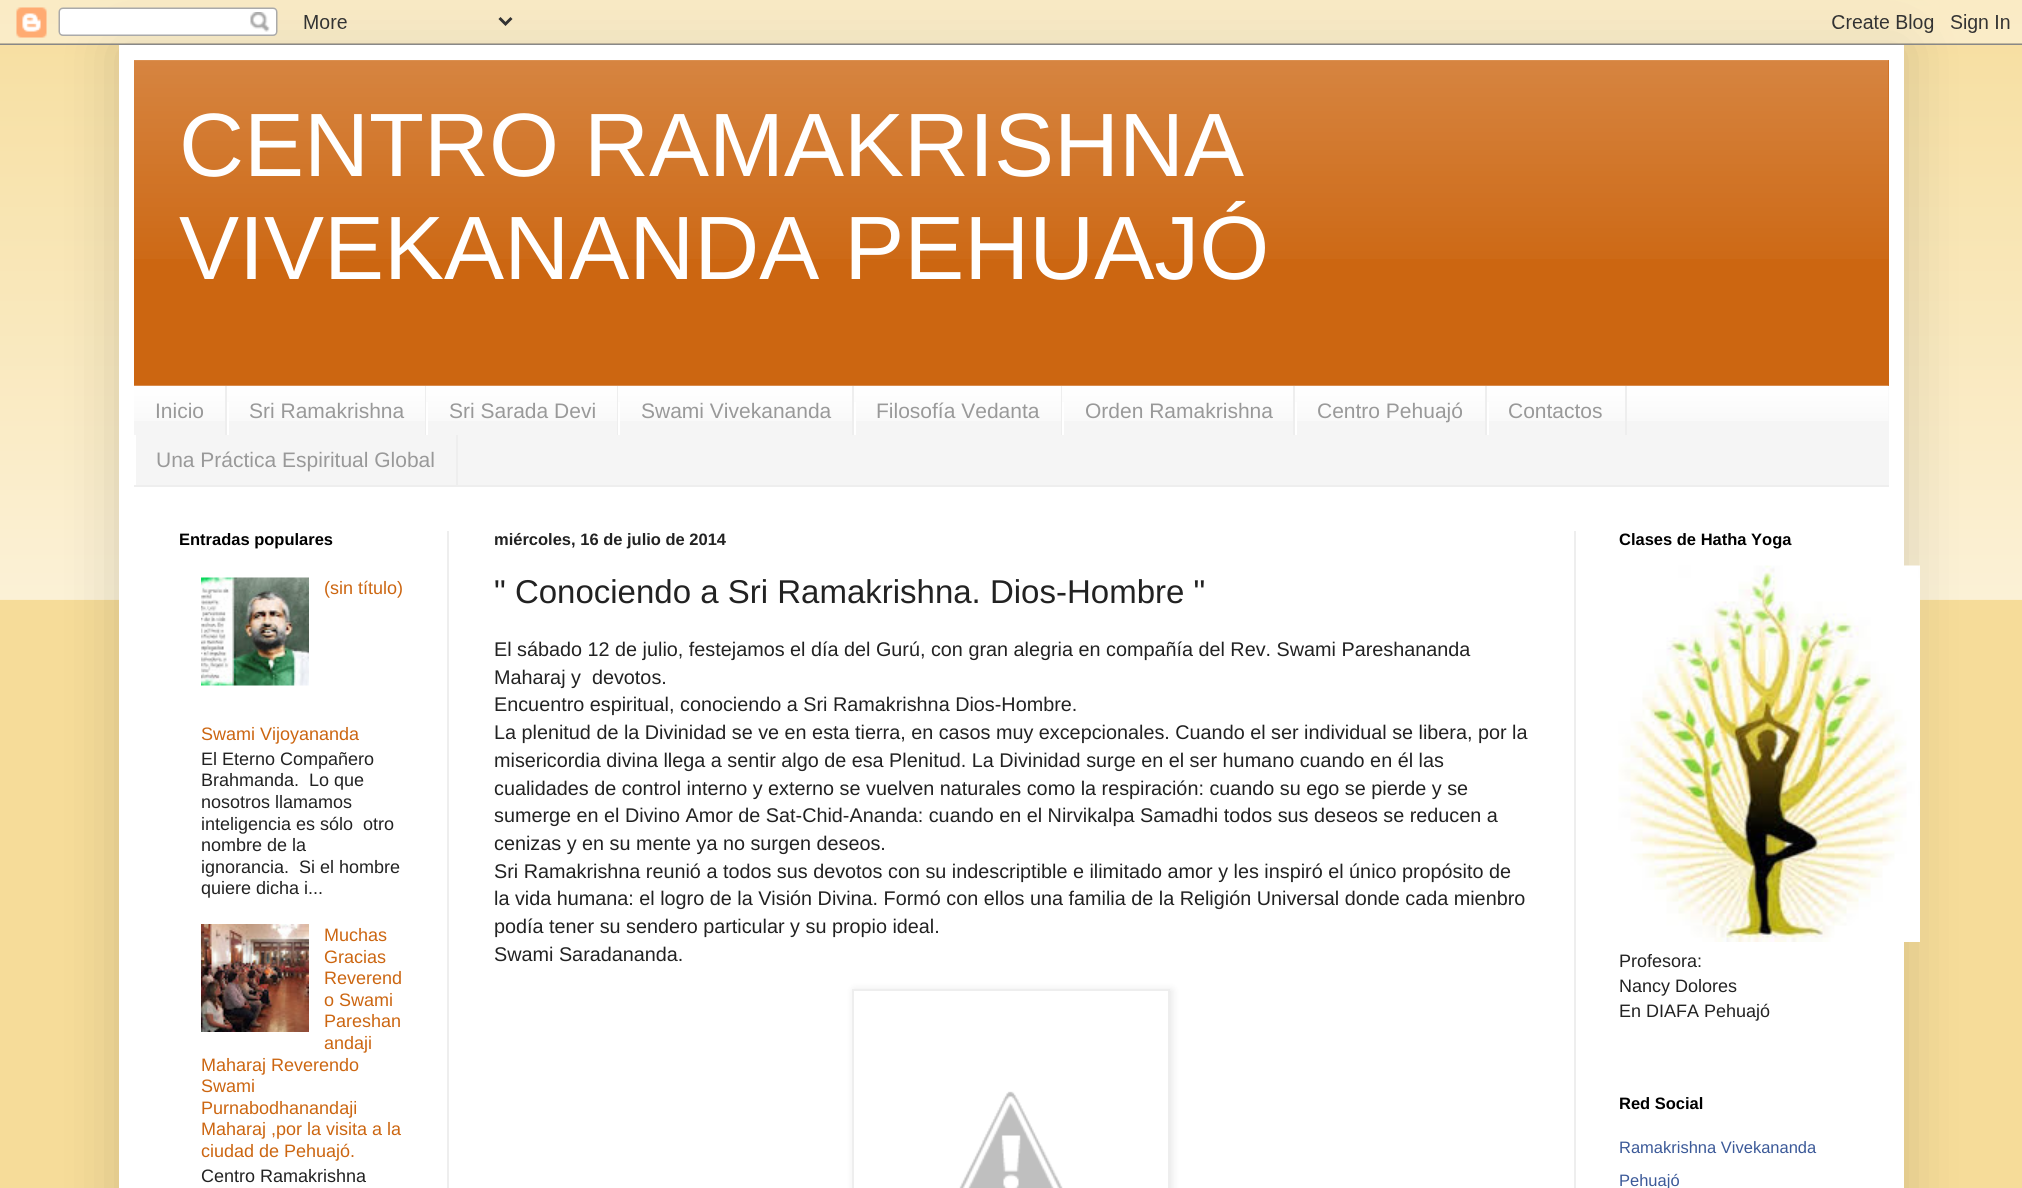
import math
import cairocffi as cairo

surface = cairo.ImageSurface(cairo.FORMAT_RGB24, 2022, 1188)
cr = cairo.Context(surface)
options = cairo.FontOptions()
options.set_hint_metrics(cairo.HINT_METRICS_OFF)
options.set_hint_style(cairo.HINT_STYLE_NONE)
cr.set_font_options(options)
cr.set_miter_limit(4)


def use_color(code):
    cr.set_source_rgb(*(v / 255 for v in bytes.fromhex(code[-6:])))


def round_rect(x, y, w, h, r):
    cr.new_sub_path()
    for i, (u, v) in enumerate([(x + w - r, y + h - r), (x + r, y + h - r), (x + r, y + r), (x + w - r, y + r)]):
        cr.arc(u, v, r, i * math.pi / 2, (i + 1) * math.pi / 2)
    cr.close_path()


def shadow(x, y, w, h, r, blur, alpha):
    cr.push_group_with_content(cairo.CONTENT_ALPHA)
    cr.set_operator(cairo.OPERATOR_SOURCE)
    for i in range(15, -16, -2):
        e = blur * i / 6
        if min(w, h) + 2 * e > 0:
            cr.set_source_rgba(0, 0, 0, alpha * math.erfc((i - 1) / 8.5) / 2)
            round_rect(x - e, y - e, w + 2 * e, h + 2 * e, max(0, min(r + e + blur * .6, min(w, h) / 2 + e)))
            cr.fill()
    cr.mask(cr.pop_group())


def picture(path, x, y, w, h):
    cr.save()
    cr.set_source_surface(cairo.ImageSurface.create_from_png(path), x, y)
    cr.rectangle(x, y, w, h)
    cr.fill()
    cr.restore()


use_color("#f6dc99")
cr.paint()
picture("img1.png", 0, 0, 2022, 600)
use_color("#000000")
shadow(119, 45, 1785, 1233, 0, 30, 0.15)
picture("img2.png", 0, 0, 2022, 45)
use_color("#ffffff")
cr.rectangle(119, 45, 1785, 1143)
cr.fill()
use_color("#cc6611")
cr.rectangle(134, 60, 1755, 326)
cr.fill()
picture("img3.png", 134, 60, 1755, 199)
cr.select_font_face("Liberation Sans")
cr.set_font_size(90)
use_color("#ffffff")
cr.move_to(179, 176)
cr.show_text("CENTRO RAMAKRISHNA")
cr.move_to(179, 279)
cr.show_text("VIVEKANANDA PEHUAJÓ")
use_color("#f5f5f5")
cr.rectangle(134, 386, 1755, 99)
cr.fill()
picture("img4.png", 134, 385, 1755, 36)
use_color("#eeeeee")
cr.rectangle(134, 485, 1755, 2)
cr.fill()
cr.rectangle(225, 386, 2, 49)
cr.fill()
cr.set_font_size(21)
use_color("#999999")
cr.move_to(155, 418)
cr.show_text("Inicio")
use_color("#eeeeee")
cr.rectangle(425, 386, 1, 49)
cr.fill()
use_color("#ffffff")
cr.rectangle(227, 402, 2, 33)
cr.fill()
use_color("#999999")
cr.move_to(249, 418)
cr.show_text("Sri Ramakrishna")
use_color("#eeeeee")
cr.rectangle(617, 386, 1, 49)
cr.fill()
use_color("#ffffff")
cr.rectangle(426, 402, 2, 33)
cr.fill()
use_color("#999999")
cr.move_to(449, 418)
cr.show_text("Sri Sarada Devi")
use_color("#eeeeee")
cr.rectangle(852, 386, 2, 49)
cr.fill()
use_color("#ffffff")
cr.rectangle(618, 402, 2, 33)
cr.fill()
use_color("#999999")
cr.move_to(641, 418)
cr.show_text("Swami Vivekananda")
use_color("#eeeeee")
cr.rectangle(1061, 386, 1, 49)
cr.fill()
use_color("#ffffff")
cr.rectangle(854, 402, 2, 33)
cr.fill()
use_color("#999999")
cr.move_to(876, 418)
cr.show_text("Filosofía Vedanta")
use_color("#eeeeee")
cr.rectangle(1293, 386, 2, 49)
cr.fill()
use_color("#ffffff")
cr.rectangle(1062, 402, 2, 33)
cr.fill()
use_color("#999999")
cr.move_to(1085, 418)
cr.show_text("Orden Ramakrishna")
use_color("#eeeeee")
cr.rectangle(1485, 386, 2, 49)
cr.fill()
use_color("#ffffff")
cr.rectangle(1295, 402, 2, 33)
cr.fill()
use_color("#999999")
cr.move_to(1317, 418)
cr.show_text("Centro Pehuajó")
use_color("#eeeeee")
cr.rectangle(1625, 386, 2, 49)
cr.fill()
use_color("#ffffff")
cr.rectangle(1487, 402, 2, 33)
cr.fill()
use_color("#999999")
cr.move_to(1508, 418)
cr.show_text("Contactos")
use_color("#eeeeee")
cr.rectangle(456, 435, 2, 50)
cr.fill()
use_color("#ffffff")
cr.rectangle(134, 435, 2, 50)
cr.fill()
use_color("#999999")
cr.move_to(156, 467)
cr.show_text("Una Práctica Espiritual Global")
use_color("#eeeeee")
cr.rectangle(447, 531, 2, 657)
cr.fill()
cr.rectangle(1574, 531, 2, 657)
cr.fill()
cr.select_font_face("Liberation Sans", cairo.FONT_SLANT_NORMAL, cairo.FONT_WEIGHT_BOLD)
cr.set_font_size(16.5)
use_color("#000000")
cr.move_to(179, 545)
cr.show_text("Entradas populares")
picture("img5.png", 201, 577, 108, 109)
cr.select_font_face("Liberation Sans")
cr.set_font_size(18)
use_color("#cc6611")
cr.move_to(324, 594)
cr.show_text("(sin título)")
cr.move_to(201, 740)
cr.show_text("Swami Vijoyananda")
use_color("#222222")
cr.move_to(201, 765)
cr.show_text("El Eterno Compañero")
cr.move_to(201, 786)
cr.show_text("Brahmanda.")
cr.move_to(309, 786)
cr.show_text("Lo que")
cr.move_to(201, 808)
cr.show_text("nosotros llamamos")
cr.move_to(201, 830)
cr.show_text("inteligencia es sólo  otro")
cr.move_to(201, 851)
cr.show_text("nombre de la")
cr.move_to(201, 873)
cr.show_text("ignorancia.")
cr.move_to(299, 873)
cr.show_text("Si el hombre")
cr.move_to(201, 894)
cr.show_text("quiere dicha i...")
picture("img6.png", 201, 924, 108, 108)
use_color("#cc6611")
cr.move_to(324, 941)
cr.show_text("Muchas")
cr.move_to(324, 963)
cr.show_text("Gracias")
cr.move_to(324, 984)
cr.show_text("Reverend")
cr.move_to(324, 1006)
cr.show_text("o Swami")
cr.move_to(324, 1027)
cr.show_text("Pareshan")
cr.move_to(324, 1049)
cr.show_text("andaji")
cr.move_to(201, 1071)
cr.show_text("Maharaj Reverendo")
cr.move_to(201, 1092)
cr.show_text("Swami")
cr.move_to(201, 1114)
cr.show_text("Purnabodhanandaji")
cr.move_to(201, 1135)
cr.show_text("Maharaj ,por la visita a la")
cr.move_to(201, 1157)
cr.show_text("ciudad de Pehuajó.")
use_color("#222222")
cr.move_to(201, 1182)
cr.show_text("Centro Ramakrishna")
cr.select_font_face("Liberation Sans", cairo.FONT_SLANT_NORMAL, cairo.FONT_WEIGHT_BOLD)
cr.set_font_size(16.5)
cr.move_to(494, 545)
cr.show_text("miércoles, 16 de julio de 2014")
cr.select_font_face("Liberation Sans")
cr.set_font_size(33)
cr.move_to(494, 603)
cr.show_text("\" Conociendo a Sri Ramakrishna. Dios-Hombre \"")
cr.set_font_size(19.8)
cr.move_to(494, 656)
cr.show_text("El sábado 12 de julio, festejamos el día del Gurú, con gran alegria en compañía del Rev. Swami Pareshananda")
cr.move_to(494, 684)
cr.show_text("Maharaj y  devotos.")
cr.move_to(494, 711)
cr.show_text("Encuentro espiritual, conociendo a Sri Ramakrishna Dios-Hombre.")
cr.move_to(494, 739)
cr.show_text("La plenitud de la Divinidad se ve en esta tierra, en casos muy excepcionales. Cuando el ser individual se libera, por la")
cr.move_to(494, 767)
cr.show_text("misericordia divina llega a sentir algo de esa Plenitud. La Divinidad surge en el ser humano cuando en él las")
cr.move_to(494, 795)
cr.show_text("cualidades de control interno y externo se vuelven naturales como la respiración: cuando su ego se pierde y se")
cr.move_to(494, 822)
cr.show_text("sumerge en el Divino Amor de Sat-Chid-Ananda: cuando en el Nirvikalpa Samadhi todos sus deseos se reducen a")
cr.move_to(494, 850)
cr.show_text("cenizas y en su mente ya no surgen deseos.")
cr.move_to(494, 878)
cr.show_text("Sri Ramakrishna reunió a todos sus devotos con su indescriptible e ilimitado amor y les inspiró el único propósito de")
cr.move_to(494, 905)
cr.show_text("la vida humana: el logro de la Visión Divina. Formó con ellos una familia de la Religión Universal donde cada mienbro")
cr.move_to(494, 933)
cr.show_text("podía tener su sendero particular y su propio ideal.")
cr.move_to(494, 961)
cr.show_text("Swami Saradananda.")
cr.save()
cr.set_fill_rule(cairo.FILL_RULE_EVEN_ODD)
cr.new_path()
cr.move_to(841, 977)
cr.line_to(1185, 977)
cr.line_to(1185, 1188)
cr.line_to(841, 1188)
cr.close_path()
cr.move_to(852, 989)
cr.line_to(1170, 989)
cr.line_to(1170, 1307)
cr.line_to(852, 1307)
cr.close_path()
cr.clip()
use_color("#000000")
shadow(854, 990, 318, 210, 0, 4, 0.1)
cr.restore()
cr.rectangle(853, 990, 316, 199)
use_color("#eeeeee")
cr.stroke()
picture("img7.png", 959, 1091, 104, 97)
cr.select_font_face("Liberation Sans", cairo.FONT_SLANT_NORMAL, cairo.FONT_WEIGHT_BOLD)
cr.set_font_size(16.5)
use_color("#000000")
cr.move_to(1619, 545)
cr.show_text("Clases de Hatha Yoga")
picture("img8.png", 1618, 565, 302, 377)
cr.select_font_face("Liberation Sans")
cr.set_font_size(18)
use_color("#222222")
cr.move_to(1619, 967)
cr.show_text("Profesora:")
cr.move_to(1619, 992)
cr.show_text("Nancy Dolores")
cr.move_to(1619, 1017)
cr.show_text("En DIAFA Pehuajó")
cr.select_font_face("Liberation Sans", cairo.FONT_SLANT_NORMAL, cairo.FONT_WEIGHT_BOLD)
cr.set_font_size(16.5)
use_color("#000000")
cr.move_to(1619, 1109)
cr.show_text("Red Social")
cr.select_font_face("Liberation Sans")
use_color("#3b5998")
cr.move_to(1619, 1153)
cr.show_text("Ramakrishna Vivekananda")
cr.move_to(1619, 1186)
cr.show_text("Pehuajó")
surface.write_to_png("result.png")
